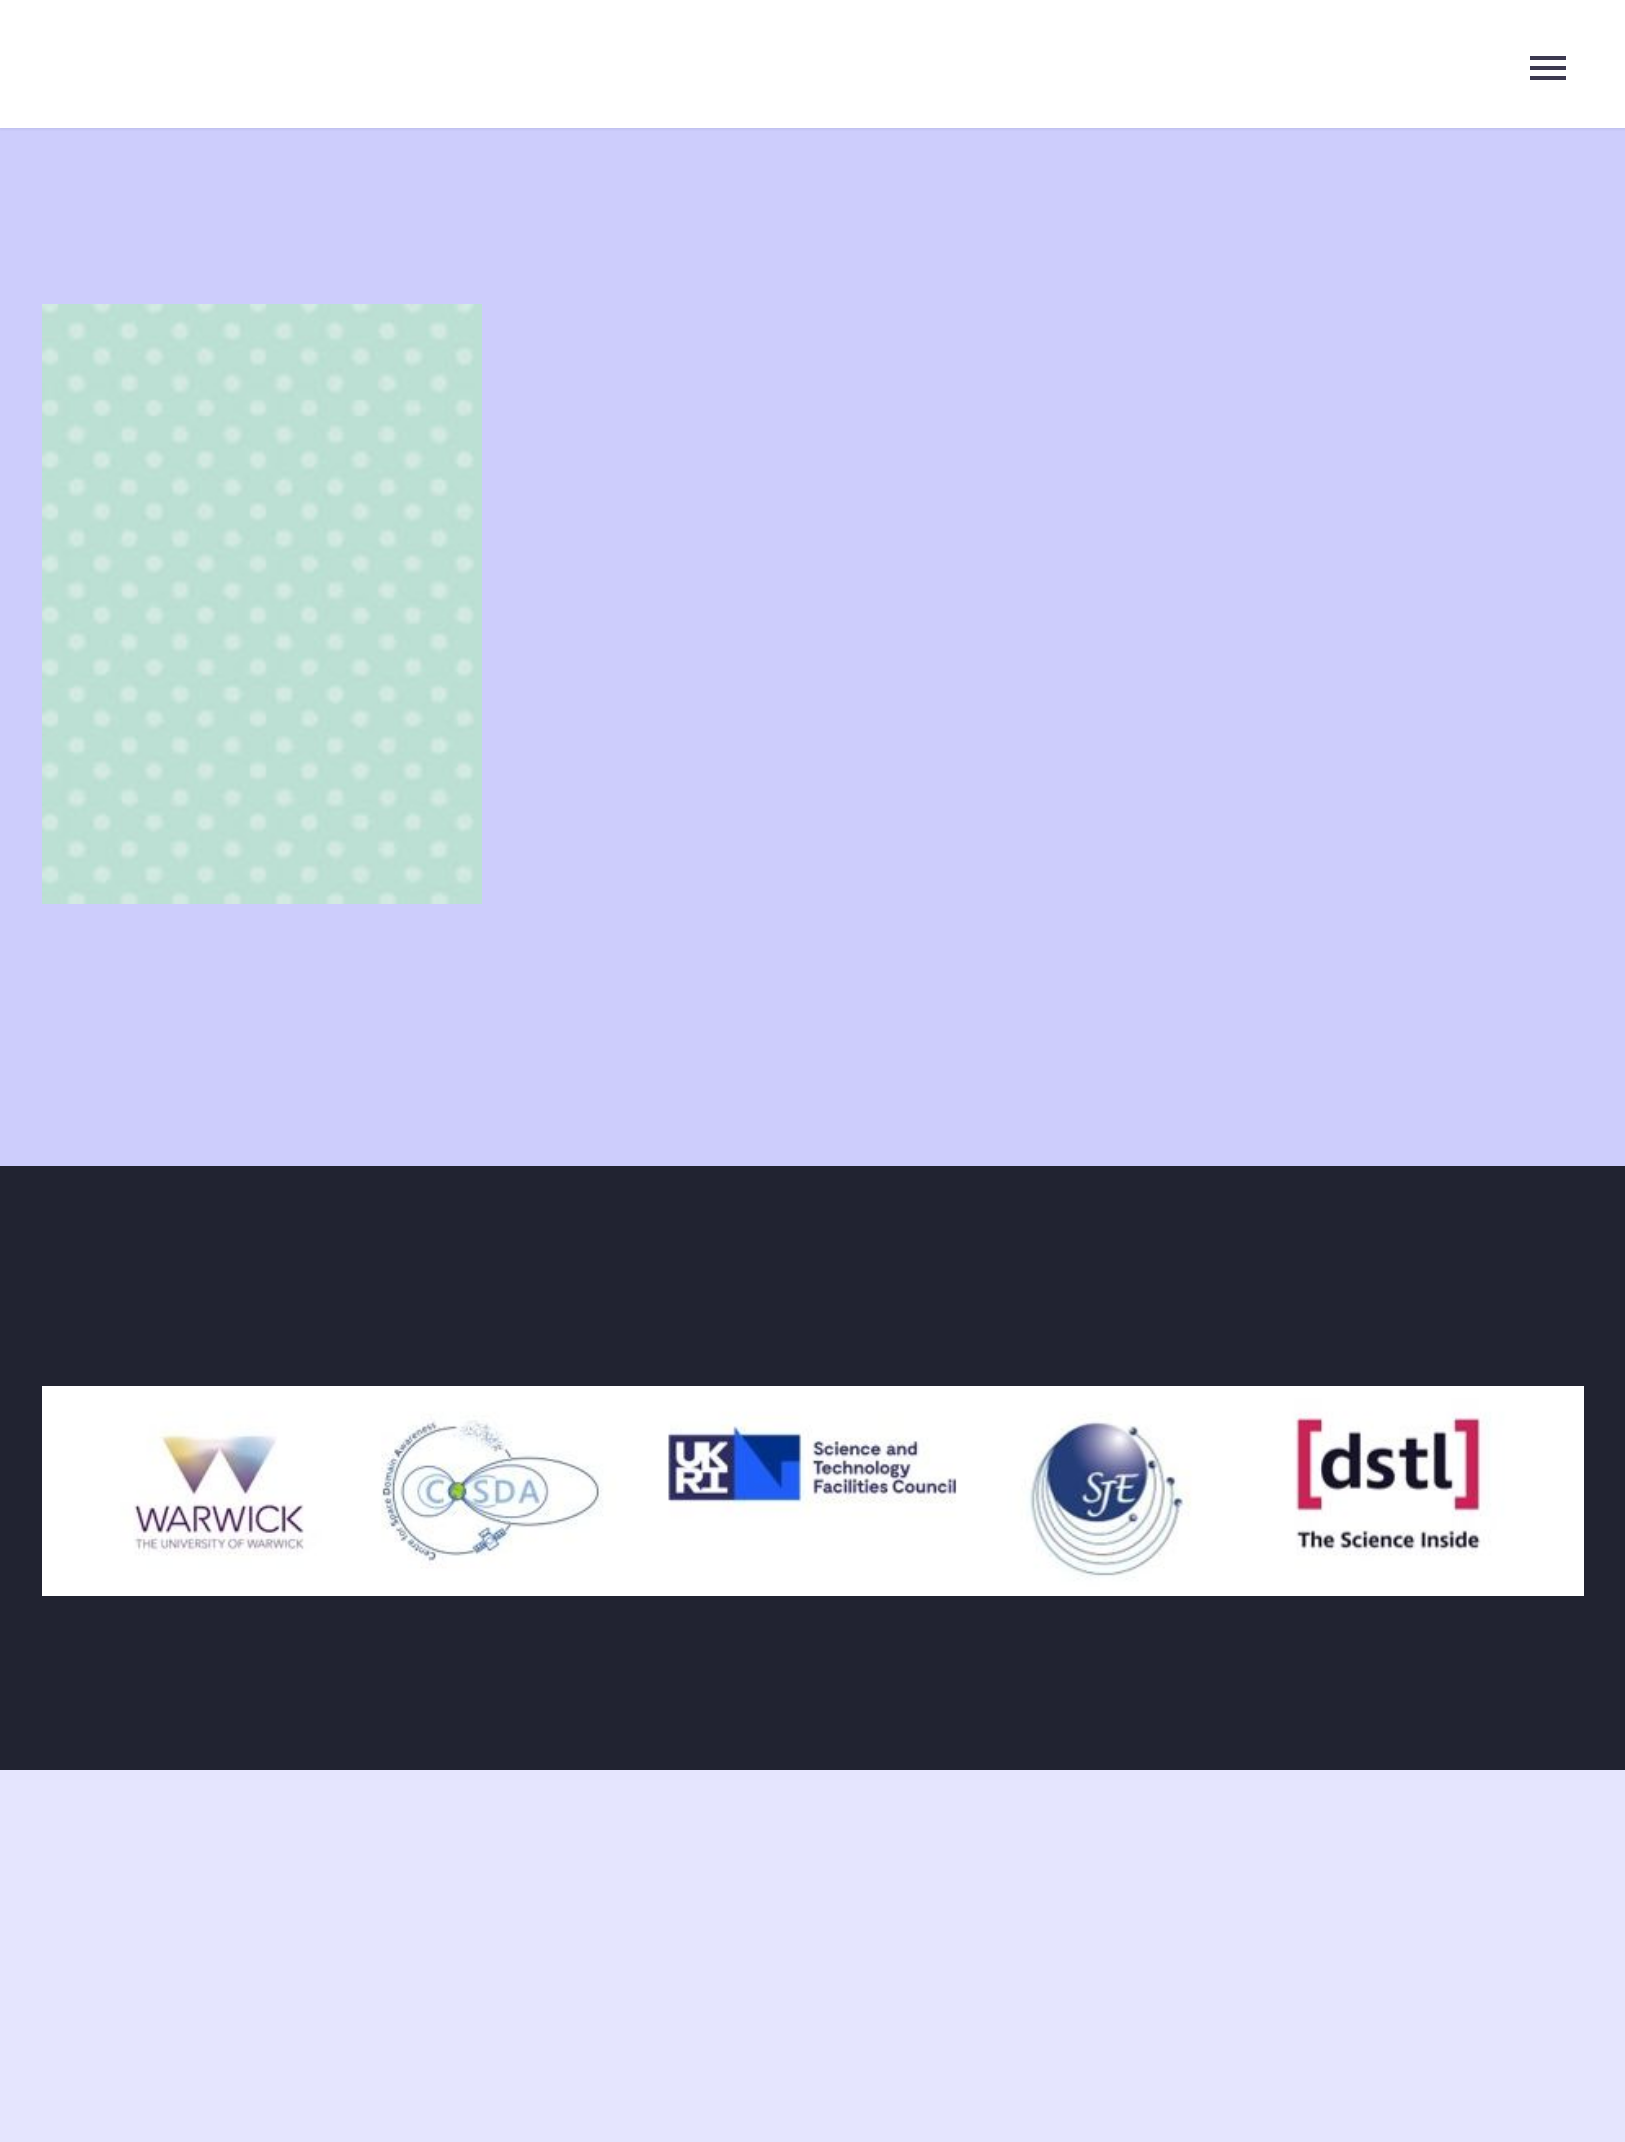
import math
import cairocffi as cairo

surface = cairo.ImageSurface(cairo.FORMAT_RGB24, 1625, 2142)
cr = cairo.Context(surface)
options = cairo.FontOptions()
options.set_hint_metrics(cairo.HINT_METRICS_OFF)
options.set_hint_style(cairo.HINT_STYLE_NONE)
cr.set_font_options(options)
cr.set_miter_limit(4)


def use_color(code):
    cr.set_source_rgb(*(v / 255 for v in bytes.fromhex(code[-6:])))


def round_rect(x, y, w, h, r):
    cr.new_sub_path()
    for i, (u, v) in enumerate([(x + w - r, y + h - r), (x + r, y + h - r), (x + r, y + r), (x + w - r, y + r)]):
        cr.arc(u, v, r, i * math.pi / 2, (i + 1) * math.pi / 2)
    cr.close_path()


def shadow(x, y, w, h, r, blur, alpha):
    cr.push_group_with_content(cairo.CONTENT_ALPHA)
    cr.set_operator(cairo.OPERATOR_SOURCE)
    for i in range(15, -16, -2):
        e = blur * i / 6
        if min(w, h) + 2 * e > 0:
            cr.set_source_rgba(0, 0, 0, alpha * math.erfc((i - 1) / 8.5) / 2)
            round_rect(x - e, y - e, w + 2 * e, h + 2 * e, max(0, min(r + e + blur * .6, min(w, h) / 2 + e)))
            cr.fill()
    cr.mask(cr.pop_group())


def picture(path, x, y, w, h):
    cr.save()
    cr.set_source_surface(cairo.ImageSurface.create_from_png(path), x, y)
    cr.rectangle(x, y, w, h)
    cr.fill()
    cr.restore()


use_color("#e5e5fe")
cr.paint()
use_color("#cdcdfc")
cr.rectangle(0, 128, 1625, 1038)
cr.fill()
use_color("#ffffff")
cr.rectangle(0, 0, 1625, 128)
cr.fill()
cr.save()
cr.rectangle(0, 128, 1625, 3)
cr.clip()
use_color("#333f65")
shadow(0, 0, 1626, 128, 0, 2, 0.2)
cr.restore()
use_color("#3c3950")
cr.rectangle(1530, 56, 36, 4)
cr.fill()
cr.rectangle(1530, 66, 36, 4)
cr.fill()
cr.rectangle(1530, 76, 36, 4)
cr.fill()
picture("img1.png", 42, 304, 440, 600)
use_color("#212331")
cr.rectangle(0, 1166, 1625, 604)
cr.fill()
picture("img2.png", 42, 1386, 1542, 210)
surface.write_to_png("result.png")
